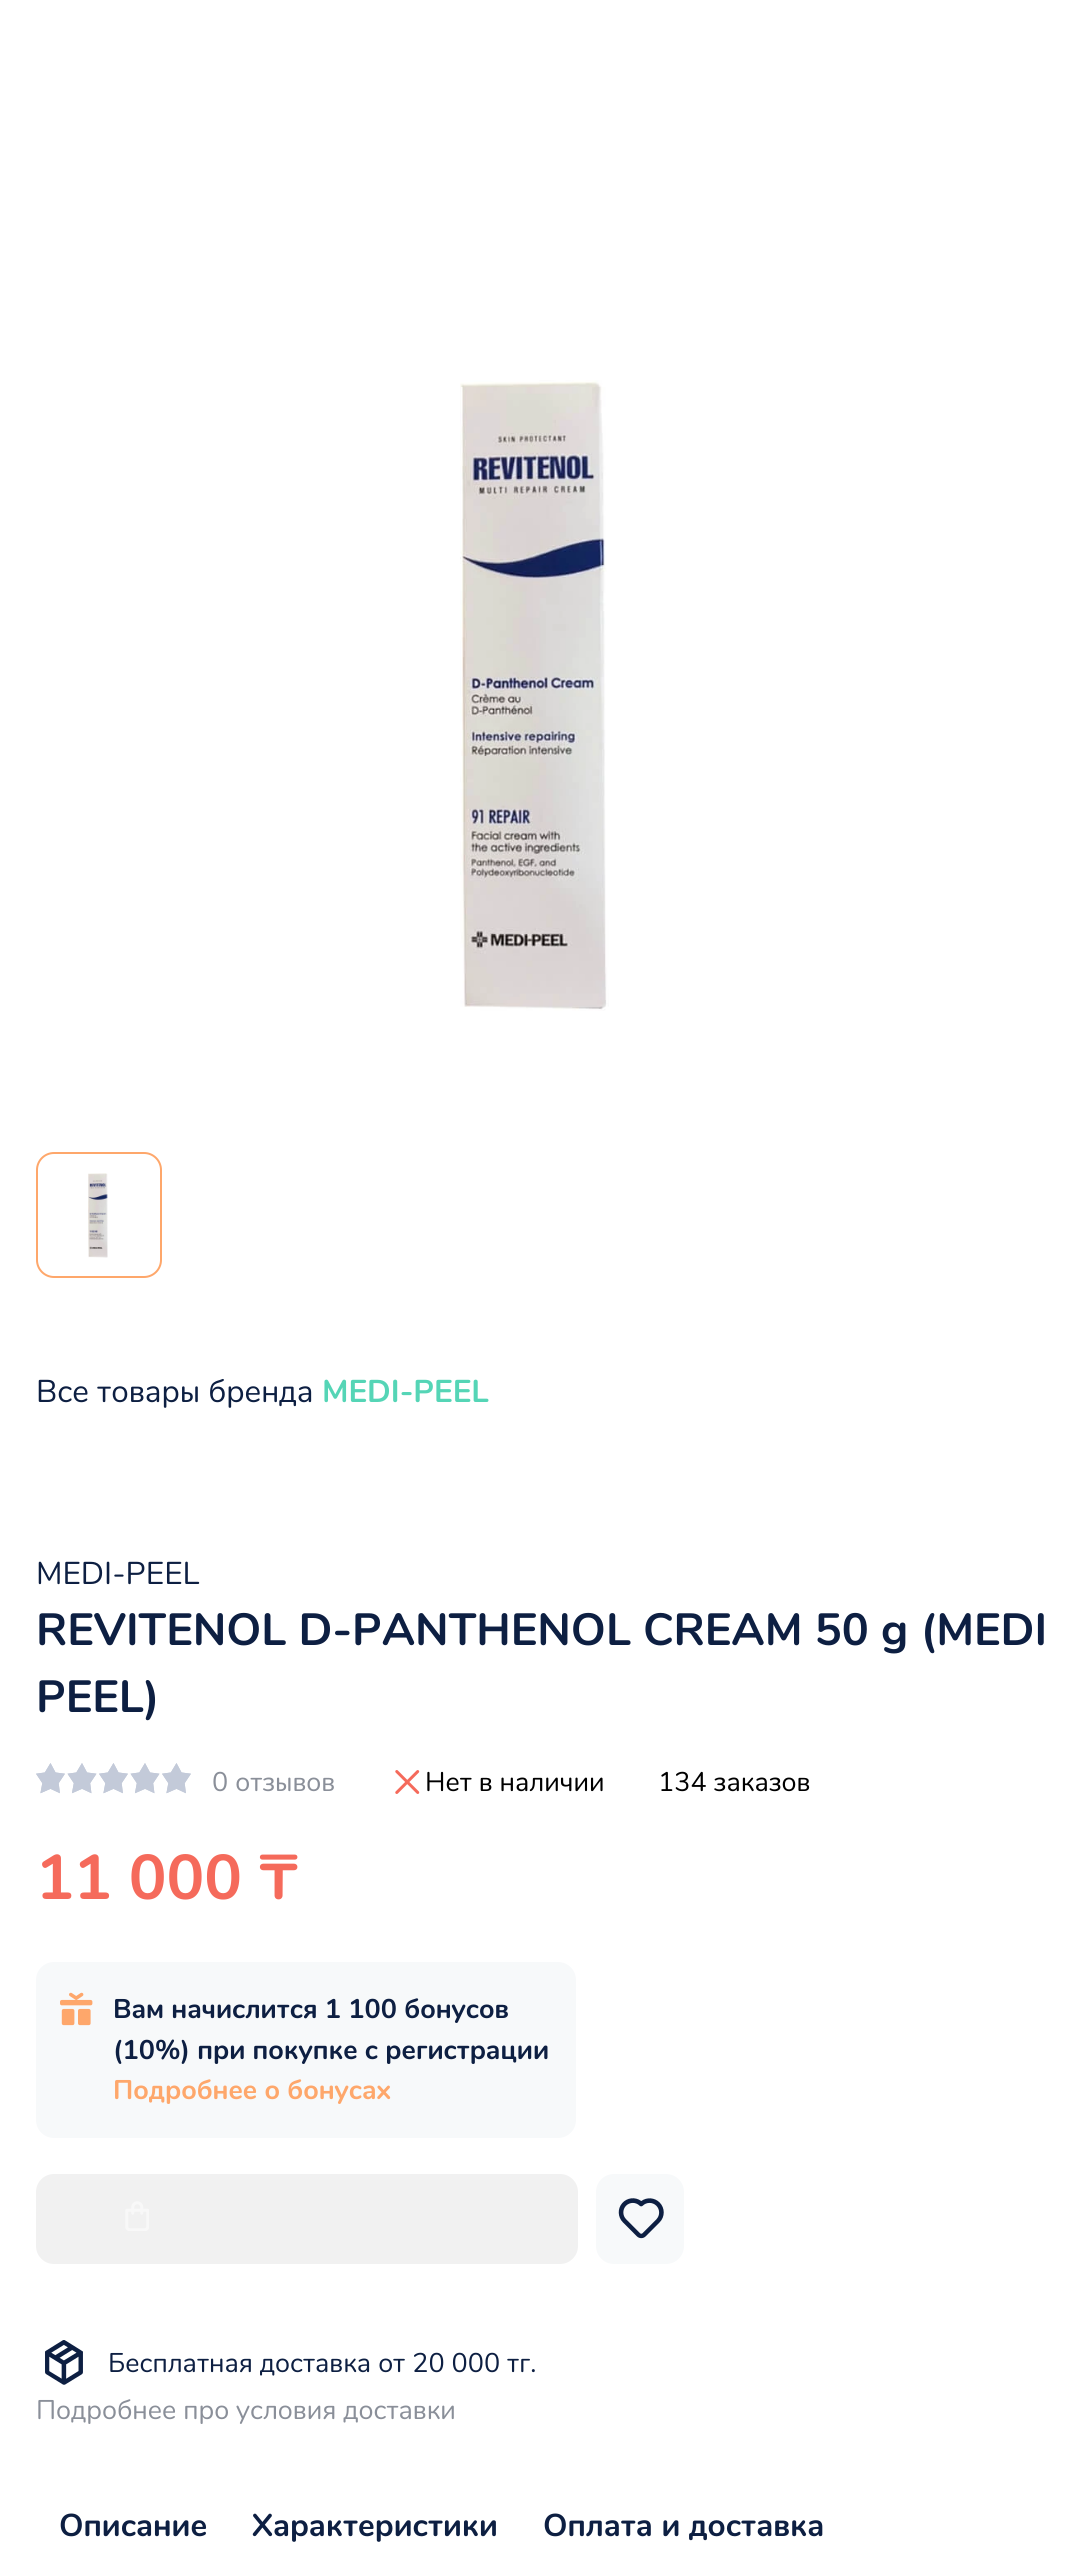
import math
import cairocffi as cairo

surface = cairo.ImageSurface(cairo.FORMAT_RGB24, 1084, 2563)
cr = cairo.Context(surface)
options = cairo.FontOptions()
options.set_hint_metrics(cairo.HINT_METRICS_OFF)
options.set_hint_style(cairo.HINT_STYLE_NONE)
cr.set_font_options(options)
cr.set_miter_limit(4)


def use_color(code):
    cr.set_source_rgb(*(v / 255 for v in bytes.fromhex(code[-6:])))


def round_rect(x, y, w, h, r):
    cr.new_sub_path()
    for i, (u, v) in enumerate([(x + w - r, y + h - r), (x + r, y + h - r), (x + r, y + r), (x + w - r, y + r)]):
        cr.arc(u, v, r, i * math.pi / 2, (i + 1) * math.pi / 2)
    cr.close_path()


def picture(path, x, y, w, h):
    cr.save()
    cr.set_source_surface(cairo.ImageSurface.create_from_png(path), x, y)
    cr.rectangle(x, y, w, h)
    cr.fill()
    cr.restore()


use_color("#ffffff")
cr.paint()
picture("img1.png", 460, 380, 149, 631)
round_rect(37, 1153, 124, 124, 17)
use_color("#fea76b")
cr.stroke()
picture("img2.png", 88, 1173, 20, 85)
cr.select_font_face("Nunito")
cr.set_font_size(31.5)
use_color("#0d1f42")
cr.move_to(36, 1402)
cr.show_text("Все товары бренда")
cr.select_font_face("Nunito", cairo.FONT_SLANT_NORMAL, cairo.FONT_WEIGHT_BOLD)
use_color("#55d5b6")
cr.move_to(322, 1402)
cr.show_text("MEDI-PEEL")
cr.select_font_face("Nunito")
use_color("#0d1f42")
cr.move_to(36, 1584)
cr.show_text("MEDI-PEEL")
cr.select_font_face("Nunito", cairo.FONT_SLANT_NORMAL, cairo.FONT_WEIGHT_BOLD)
cr.set_font_size(45)
cr.move_to(36, 1645)
cr.show_text("REVITENOL D-PANTHENOL CREAM 50 g (MEDI")
cr.move_to(36, 1712)
cr.show_text("PEEL)")
picture("img3.png", 36, 1763, 29, 31)
picture("img4.png", 67, 1763, 30, 31)
picture("img3.png", 99, 1763, 29, 31)
picture("img4.png", 130, 1763, 30, 31)
picture("img3.png", 162, 1763, 29, 31)
cr.select_font_face("Nunito")
cr.set_font_size(27)
use_color("#8a8f99")
cr.move_to(212, 1791)
cr.show_text("0 отзывов")
picture("img5.png", 395, 1770, 25, 24)
use_color("#000000")
cr.move_to(425, 1791)
cr.show_text("Нет в наличии")
cr.move_to(658, 1791)
cr.show_text("134 заказов")
cr.select_font_face("Nunito", cairo.FONT_SLANT_NORMAL, cairo.FONT_WEIGHT_BOLD)
cr.set_font_size(63)
use_color("#f56a5b")
cr.move_to(36, 1899)
cr.show_text("11 000 ₸")
use_color("#f7f9fa")
round_rect(36, 1962, 540, 176, 18)
cr.fill()
picture("img6.png", 60, 1992, 33, 34)
cr.set_font_size(27)
use_color("#0d1f42")
cr.move_to(113, 2018)
cr.show_text("Вам начислится 1 100 бонусов")
cr.move_to(113, 2059)
cr.show_text("(10%) при покупке с регистрации")
use_color("#fea76b")
cr.move_to(113, 2099)
cr.show_text("Подробнее о бонусах")
use_color("#f1f1f1")
round_rect(36, 2174, 542, 90, 18)
cr.fill()
picture("img7.png", 125, 2201, 24, 30)
use_color("#f7f9fa")
round_rect(596, 2174, 88, 90, 18)
cr.fill()
picture("img8.png", 618, 2198, 46, 41)
picture("img9.png", 45, 2340, 38, 45)
cr.select_font_face("Nunito")
use_color("#0d1f42")
cr.move_to(108, 2372)
cr.show_text("Бесплатная доставка от 20 000 тг.")
use_color("#8a8f99")
cr.move_to(36, 2419)
cr.show_text("Подробнее про условия доставки")
cr.select_font_face("Nunito", cairo.FONT_SLANT_NORMAL, cairo.FONT_WEIGHT_BOLD)
cr.set_font_size(31.5)
use_color("#0d1f42")
cr.move_to(59, 2536)
cr.show_text("Описание")
cr.move_to(252, 2536)
cr.show_text("Характеристики")
cr.move_to(543, 2536)
cr.show_text("Оплата и доставка")
surface.write_to_png("result.png")
